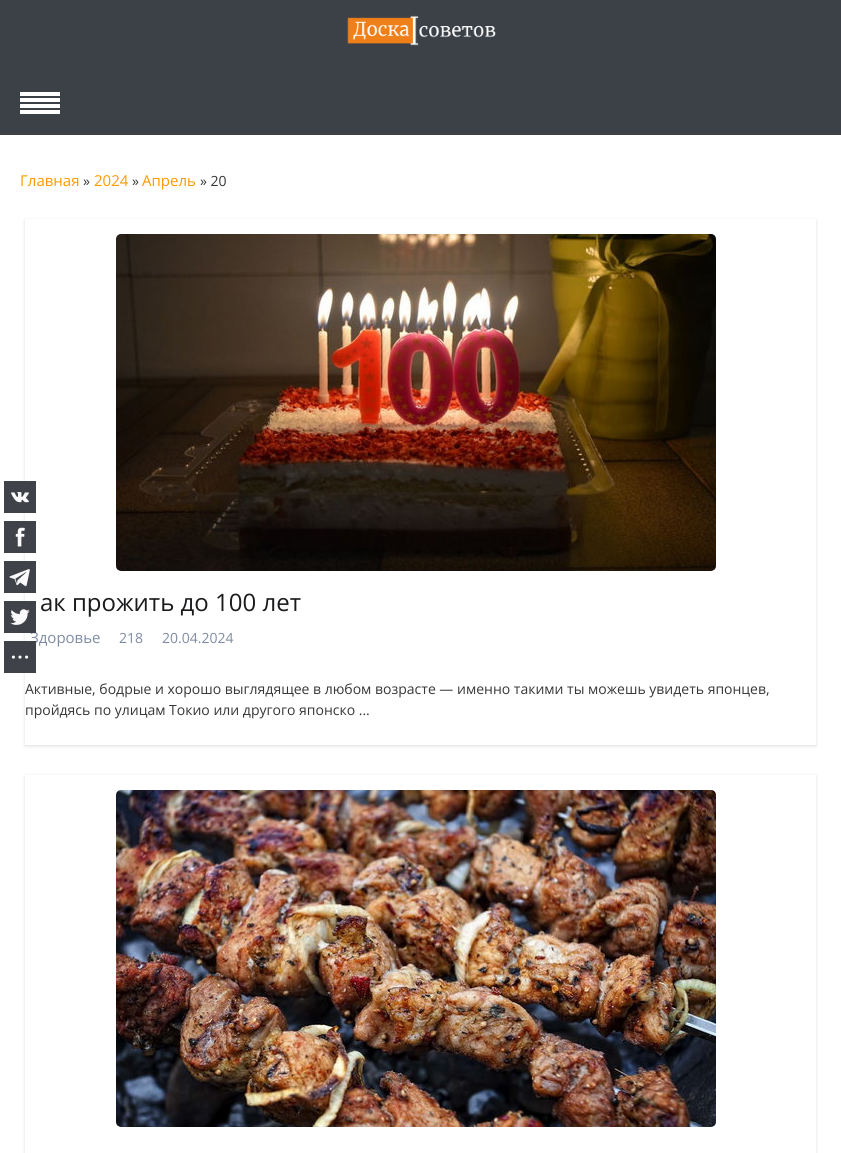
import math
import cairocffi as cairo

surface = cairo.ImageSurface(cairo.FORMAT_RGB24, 841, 1153)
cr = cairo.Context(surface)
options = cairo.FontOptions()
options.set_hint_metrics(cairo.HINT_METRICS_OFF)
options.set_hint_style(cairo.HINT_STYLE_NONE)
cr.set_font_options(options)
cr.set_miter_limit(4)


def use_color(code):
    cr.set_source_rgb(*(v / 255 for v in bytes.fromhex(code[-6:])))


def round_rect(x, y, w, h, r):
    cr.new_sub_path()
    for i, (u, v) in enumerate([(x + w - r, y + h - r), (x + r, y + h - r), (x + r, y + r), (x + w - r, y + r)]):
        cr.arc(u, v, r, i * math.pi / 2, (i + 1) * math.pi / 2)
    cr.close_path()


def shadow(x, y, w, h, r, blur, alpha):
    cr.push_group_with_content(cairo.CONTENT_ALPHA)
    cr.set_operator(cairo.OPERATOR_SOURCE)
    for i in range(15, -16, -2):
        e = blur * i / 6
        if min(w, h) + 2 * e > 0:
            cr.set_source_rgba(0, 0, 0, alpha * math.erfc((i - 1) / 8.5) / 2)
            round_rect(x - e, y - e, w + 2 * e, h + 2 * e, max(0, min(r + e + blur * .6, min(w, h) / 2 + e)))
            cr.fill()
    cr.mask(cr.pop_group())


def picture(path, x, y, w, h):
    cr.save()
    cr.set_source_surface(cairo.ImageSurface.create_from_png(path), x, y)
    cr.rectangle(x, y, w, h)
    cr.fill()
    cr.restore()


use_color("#ffffff")
cr.paint()
use_color("#3c4148")
cr.rectangle(0, 0, 841, 135)
cr.fill()
picture("img1.png", 347, 15, 149, 31)
use_color("#ffffff")
cr.rectangle(20, 92, 40, 4)
cr.fill()
cr.rectangle(20, 98, 40, 4)
cr.fill()
cr.rectangle(20, 104, 40, 4)
cr.fill()
cr.rectangle(20, 110, 40, 4)
cr.fill()
cr.save()
cr.set_fill_rule(cairo.FILL_RULE_EVEN_ODD)
cr.new_path()
cr.move_to(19, 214)
cr.line_to(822, 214)
cr.line_to(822, 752)
cr.line_to(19, 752)
cr.close_path()
cr.move_to(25, 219)
cr.line_to(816, 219)
cr.line_to(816, 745)
cr.line_to(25, 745)
cr.close_path()
cr.clip()
use_color("#dddddd")
shadow(25, 220, 791, 526, 0, 1.5, 1)
cr.restore()
use_color("#3f4248")
cr.rectangle(4, 481, 32, 32)
cr.fill()
picture("img2.png", 11, 492, 18, 11)
cr.rectangle(4, 521, 32, 32)
cr.fill()
picture("img3.png", 15, 527, 10, 20)
cr.rectangle(4, 561, 32, 32)
cr.fill()
picture("img4.png", 9, 569, 21, 18)
cr.select_font_face("Open Sans")
cr.set_font_size(15)
use_color("#7e8ca3")
cr.move_to(30, 643)
cr.show_text("Здоровье")
use_color("#3f4248")
cr.rectangle(4, 601, 32, 32)
cr.fill()
picture("img5.png", 10, 609, 20, 16)
cr.rectangle(4, 641, 32, 32)
cr.fill()
picture("img6.png", 11, 655, 18, 4)
use_color("#ff9900")
cr.move_to(20, 186)
cr.show_text("Главная")
cr.set_font_size(14)
use_color("#373737")
cr.move_to(83, 186)
cr.show_text("»")
cr.set_font_size(15)
use_color("#ff9900")
cr.move_to(94, 186)
cr.show_text("2024")
cr.set_font_size(14)
use_color("#373737")
cr.move_to(132, 186)
cr.show_text("»")
cr.set_font_size(15)
use_color("#ff9900")
cr.move_to(142, 186)
cr.show_text("Апрель")
cr.set_font_size(14)
use_color("#373737")
cr.move_to(200, 186)
cr.show_text("» 20")
picture("img7.png", 116, 234, 600, 337)
cr.set_font_size(24)
use_color("#1a1b1d")
cr.move_to(40, 611)
cr.show_text("ак прожить до 100 лет")
cr.set_font_size(14)
use_color("#7e8ca3")
cr.move_to(119, 643)
cr.show_text("218")
cr.move_to(162, 643)
cr.show_text("20.04.2024")
use_color("#373737")
cr.move_to(25, 694)
cr.show_text("Активные, бодрые и хорошо выглядящее в любом возрасте — именно такими ты можешь увидеть японцев,")
cr.move_to(25, 715)
cr.show_text("пройдясь по улицам Токио или другого японско ...")
cr.save()
cr.set_fill_rule(cairo.FILL_RULE_EVEN_ODD)
cr.new_path()
cr.move_to(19, 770)
cr.line_to(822, 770)
cr.line_to(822, 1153)
cr.line_to(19, 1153)
cr.close_path()
cr.move_to(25, 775)
cr.line_to(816, 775)
cr.line_to(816, 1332)
cr.line_to(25, 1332)
cr.close_path()
cr.clip()
use_color("#dddddd")
shadow(25, 776, 791, 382, 0, 1.5, 1)
cr.restore()
picture("img8.png", 116, 790, 600, 337)
surface.write_to_png("result.png")
